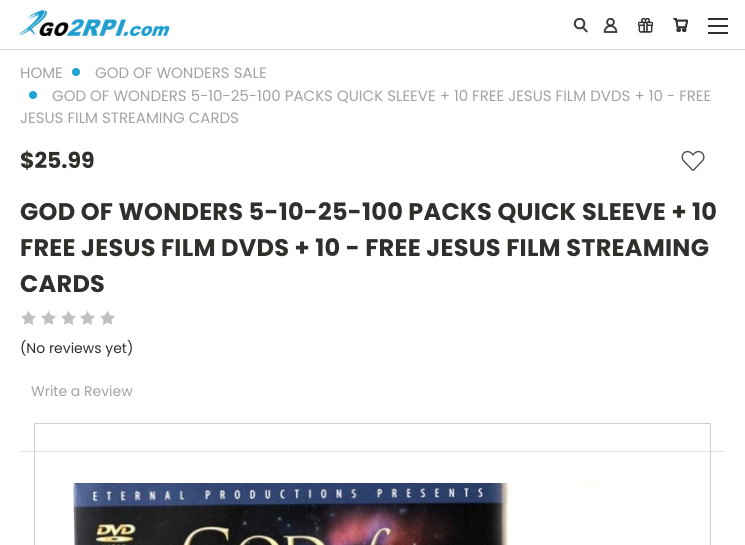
import math
import cairocffi as cairo

surface = cairo.ImageSurface(cairo.FORMAT_RGB24, 745, 545)
cr = cairo.Context(surface)
options = cairo.FontOptions()
options.set_hint_metrics(cairo.HINT_METRICS_OFF)
options.set_hint_style(cairo.HINT_STYLE_NONE)
cr.set_font_options(options)
cr.set_miter_limit(4)


def use_color(code):
    cr.set_source_rgb(*(v / 255 for v in bytes.fromhex(code[-6:])))


def spaced_text(x, y, s, letter, word):
    cr.move_to(x, y)
    for ch in s:
        cr.show_text(ch)
        cr.rel_move_to(letter + word * (ch == ' '), 0)


def picture(path, x, y, w, h):
    cr.save()
    cr.set_source_surface(cairo.ImageSurface.create_from_png(path), x, y)
    cr.rectangle(x, y, w, h)
    cr.fill()
    cr.restore()


use_color("#ffffff")
cr.paint()
use_color("#d7d7d7")
cr.rectangle(0, 49, 745, 1)
cr.fill()
picture("img1.png", 18, 9, 152, 27)
picture("img2.png", 573, 18, 15, 15)
picture("img3.png", 603, 18, 15, 15)
picture("img4.png", 638, 18, 15, 15)
picture("img5.png", 673, 18, 15, 15)
use_color("#2f2f2b")
cr.rectangle(708, 25, 20, 2)
cr.fill()
cr.rectangle(708, 18, 20, 2)
cr.fill()
cr.rectangle(708, 32, 20, 2)
cr.fill()
cr.select_font_face("Poppins")
cr.set_font_size(15)
use_color("#a2a2a2")
cr.move_to(20, 78)
cr.show_text("HOME")
use_color("#20a1d3")
cr.new_path()
cr.arc(76, 72, 4, 0, 2 * math.pi)
cr.fill()
use_color("#a2a2a2")
cr.move_to(95, 78)
cr.show_text("GOD OF WONDERS SALE")
use_color("#20a1d3")
cr.new_path()
cr.arc(33, 95, 4, 0, 2 * math.pi)
cr.fill()
use_color("#a2a2a2")
cr.move_to(52, 101)
cr.show_text("GOD OF WONDERS 5-10-25-100 PACKS QUICK SLEEVE + 10 FREE JESUS FILM DVDS + 10 - FREE")
cr.move_to(20, 123)
cr.show_text("JESUS FILM STREAMING CARDS")
use_color("#e2e2e2")
cr.rectangle(20, 451, 705, 1)
cr.fill()
cr.select_font_face("Poppins", cairo.FONT_SLANT_NORMAL, cairo.FONT_WEIGHT_BOLD)
cr.set_font_size(22)
use_color("#2f2f2b")
cr.move_to(20, 168)
cr.show_text("$25.99")
picture("img6.png", 681, 150, 24, 21)
cr.set_font_size(24)
spaced_text(20, 220, "GOD OF WONDERS 5-10-25-100 PACKS QUICK SLEEVE + 10", 0.25, 0)
spaced_text(20, 256, "FREE JESUS FILM DVDS + 10 - FREE JESUS FILM STREAMING", 0.25, 0)
spaced_text(20, 292, "CARDS", 0.25, 0)
picture("img7.png", 21, 311, 15, 14)
picture("img7.png", 41, 311, 15, 14)
picture("img7.png", 61, 311, 15, 14)
picture("img7.png", 80, 311, 15, 14)
picture("img7.png", 100, 311, 15, 14)
cr.select_font_face("Poppins")
cr.set_font_size(14)
cr.move_to(20, 353)
cr.show_text("(No reviews yet)")
use_color("#a2a2a2")
cr.move_to(31, 396)
cr.show_text("Write a Review")
cr.rectangle(34.5, 423.5, 676, 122)
use_color("#d0d0d0")
cr.set_line_width(1)
cr.stroke()
picture("img8.png", 73, 483, 531, 62)
surface.write_to_png("result.png")
